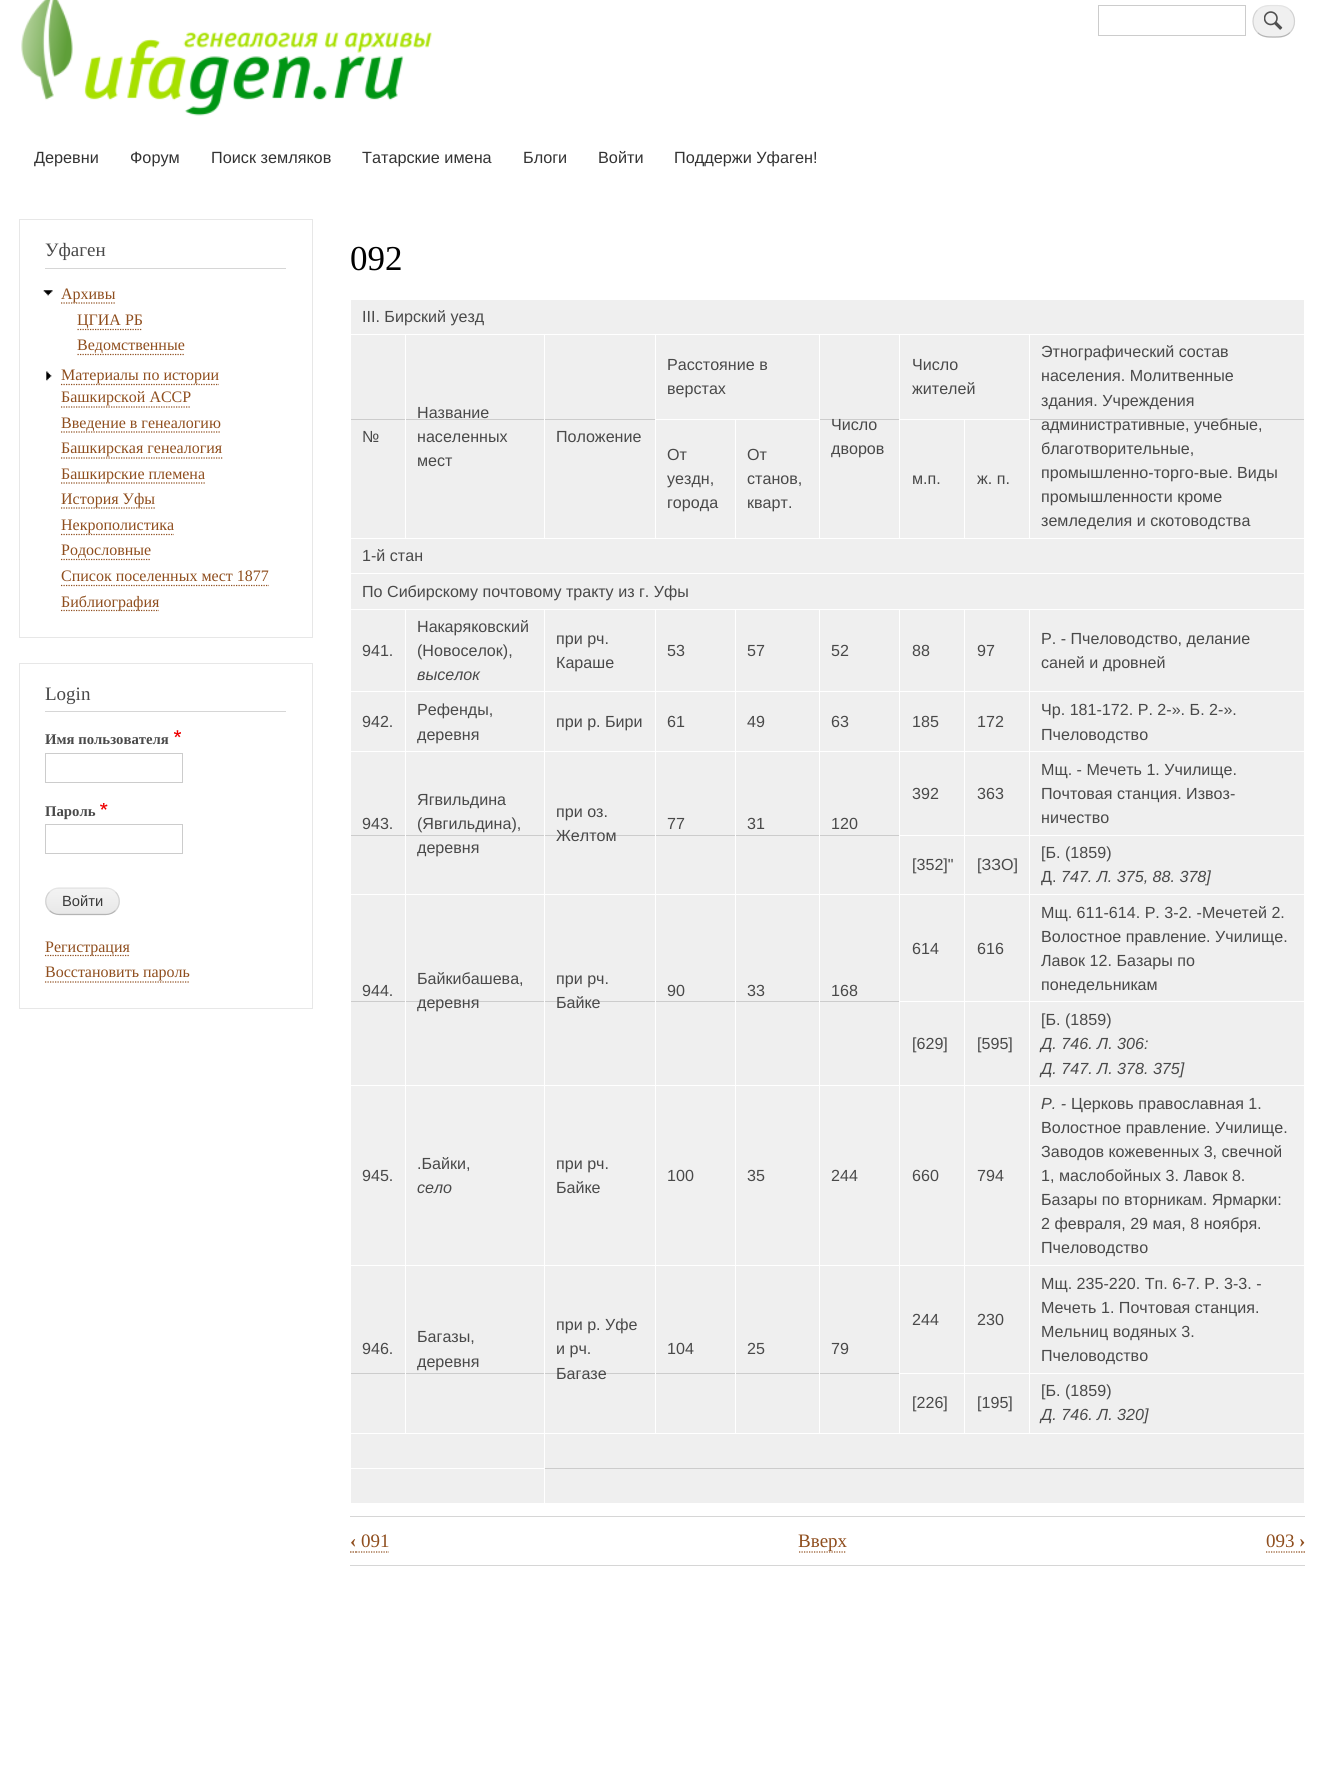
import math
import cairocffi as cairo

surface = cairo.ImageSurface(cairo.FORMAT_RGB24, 1323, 1788)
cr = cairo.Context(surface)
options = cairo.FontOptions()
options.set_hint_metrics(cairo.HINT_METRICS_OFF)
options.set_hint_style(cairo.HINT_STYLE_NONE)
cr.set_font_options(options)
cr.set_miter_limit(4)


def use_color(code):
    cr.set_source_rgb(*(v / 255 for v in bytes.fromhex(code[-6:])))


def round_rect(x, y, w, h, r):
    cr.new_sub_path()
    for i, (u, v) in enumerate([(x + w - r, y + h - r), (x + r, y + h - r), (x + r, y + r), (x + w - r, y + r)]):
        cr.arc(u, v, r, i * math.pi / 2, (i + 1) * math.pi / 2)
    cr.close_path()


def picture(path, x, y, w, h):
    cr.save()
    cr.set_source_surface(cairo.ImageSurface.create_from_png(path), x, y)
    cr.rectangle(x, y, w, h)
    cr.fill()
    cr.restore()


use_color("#ffffff")
cr.paint()
picture("img1.png", 21, 0, 411, 116)
cr.rectangle(1098.5, 5.5, 147, 30)
use_color("#cccccc")
cr.set_line_width(1)
cr.stroke()
use_color("#f0f0f0")
round_rect(1253, 5, 42, 33, 16.5)
cr.fill()
picture("img2.png", 1264, 11, 19, 19)
cr.new_path()
cr.move_to(1257.5, 10)
cr.curve_to(1262, 5.5, 1268, 5.5, 1274, 5.5)
cr.curve_to(1279.5, 5.5, 1285.5, 5.5, 1290, 10)
use_color("#e4e4e4")
cr.set_line_width(1.2)
cr.stroke()
cr.new_path()
cr.move_to(1290, 10)
cr.curve_to(1296, 16, 1296, 26.5, 1290, 32.5)
use_color("#d2d2d2")
cr.stroke()
cr.new_path()
cr.move_to(1290, 32.5)
cr.curve_to(1285.5, 37, 1279.5, 37, 1274, 37)
cr.curve_to(1268, 37, 1262, 37, 1257.5, 32.5)
use_color("#b4b4b4")
cr.stroke()
cr.new_path()
cr.move_to(1257.5, 32.5)
cr.curve_to(1251.5, 26.5, 1251.5, 16, 1257.5, 10)
use_color("#d2d2d2")
cr.stroke()
cr.select_font_face("Liberation Sans")
cr.set_font_size(16.25)
use_color("#333333")
cr.move_to(34, 163)
cr.show_text("Деревни")
cr.move_to(130, 163)
cr.show_text("Форум")
cr.move_to(211, 163)
cr.show_text("Поиск земляков")
cr.move_to(362, 163)
cr.show_text("Татарские имена")
cr.move_to(523, 163)
cr.show_text("Блоги")
cr.move_to(598, 163)
cr.show_text("Войти")
cr.move_to(674, 163)
cr.show_text("Поддержи Уфаген!")
cr.rectangle(19.5, 219.5, 293, 418)
use_color("#e7e7e7")
cr.set_line_width(1)
cr.stroke()
use_color("#d6d6d6")
cr.rectangle(45, 268, 241, 1)
cr.fill()
cr.select_font_face("Liberation Serif")
cr.set_font_size(19)
use_color("#494949")
cr.move_to(45, 256)
cr.show_text("Уфаген")
picture("img3.png", 43, 290, 10, 6)
cr.new_path()
cr.move_to(61, 303)
cr.line_to(115, 303)
use_color("#8f4e1e")
cr.set_line_width(1.2)
cr.set_dash([1.25, 1.25])
cr.stroke()
cr.set_font_size(16)
cr.move_to(61, 299)
cr.show_text("Архивы")
cr.new_path()
cr.move_to(77.5, 329.5)
cr.line_to(142.5, 329.5)
cr.stroke()
cr.move_to(77, 325)
cr.show_text("ЦГИА РБ")
cr.new_path()
cr.move_to(77.5, 354.5)
cr.line_to(185, 354.5)
cr.stroke()
cr.move_to(77, 350)
cr.show_text("Ведомственные")
picture("img4.png", 46, 371, 6, 10)
cr.new_path()
cr.move_to(61, 384.5)
cr.line_to(219, 384.5)
cr.stroke()
cr.move_to(61, 380)
cr.show_text("Материалы по истории")
cr.move_to(61, 402)
cr.show_text("Башкирской АССР")
cr.new_path()
cr.move_to(61, 407)
cr.line_to(191, 407)
cr.stroke()
cr.new_path()
cr.move_to(61, 432)
cr.line_to(220, 432)
cr.stroke()
cr.move_to(61, 428)
cr.show_text("Введение в генеалогию")
cr.move_to(61, 453)
cr.show_text("Башкирская генеалогия")
cr.new_path()
cr.move_to(61, 458)
cr.line_to(222.5, 458)
cr.stroke()
cr.new_path()
cr.move_to(61, 483)
cr.line_to(205, 483)
cr.stroke()
cr.move_to(61, 479)
cr.show_text("Башкирские племена")
cr.new_path()
cr.move_to(61, 508)
cr.line_to(155, 508)
cr.stroke()
cr.move_to(61, 504)
cr.show_text("История Уфы")
cr.new_path()
cr.move_to(61, 534.5)
cr.line_to(174, 534.5)
cr.stroke()
cr.move_to(61, 530)
cr.show_text("Некрополистика")
cr.new_path()
cr.move_to(61, 559.5)
cr.line_to(151, 559.5)
cr.stroke()
cr.move_to(61, 555)
cr.show_text("Родословные")
cr.move_to(61, 581)
cr.show_text("Список поселенных мест 1877")
cr.new_path()
cr.move_to(61, 585.5)
cr.line_to(269, 585.5)
cr.stroke()
cr.new_path()
cr.move_to(61, 610.5)
cr.line_to(159, 610.5)
cr.stroke()
cr.move_to(61, 607)
cr.show_text("Библиография")
cr.rectangle(19.5, 663.5, 293, 345)
use_color("#e7e7e7")
cr.set_line_width(1)
cr.set_dash([])
cr.stroke()
use_color("#d6d6d6")
cr.rectangle(45, 711, 241, 1)
cr.fill()
cr.set_font_size(19)
use_color("#494949")
cr.move_to(45, 700)
cr.show_text("Login")
cr.select_font_face("Liberation Serif", cairo.FONT_SLANT_NORMAL, cairo.FONT_WEIGHT_BOLD)
cr.set_font_size(14.75)
cr.move_to(45, 744)
cr.show_text("Имя пользователя")
picture("img5.png", 174, 730, 7, 8)
cr.rectangle(45.5, 753.5, 137, 29)
use_color("#cccccc")
cr.stroke()
use_color("#494949")
cr.move_to(45, 816)
cr.show_text("Пароль")
picture("img6.png", 100, 803, 8, 7)
cr.rectangle(45.5, 824.5, 137, 29)
use_color("#cccccc")
cr.stroke()
cr.save()
round_rect(45, 888, 75, 27, 13.5)
cr.clip()
gradient = cairo.LinearGradient(83, 864, 83, 889)
gradient.add_color_stop_rgba(0, 0.953, 0.953, 0.953, 1)
gradient.add_color_stop_rgba(1, 0.91, 0.91, 0.91, 1)
cr.set_source(gradient)
cr.rectangle(45, 888, 75, 1)
cr.fill()
gradient = cairo.LinearGradient(83, 889, 83, 914)
gradient.add_color_stop_rgba(0, 0.953, 0.953, 0.953, 1)
gradient.add_color_stop_rgba(1, 0.91, 0.91, 0.91, 1)
cr.set_source(gradient)
cr.rectangle(45, 889, 75, 25)
cr.fill()
cr.restore()
cr.new_path()
cr.move_to(49.5, 892)
cr.curve_to(52, 889.5, 55.5, 888, 59, 888)
cr.line_to(106, 888)
cr.curve_to(109.5, 888, 113, 889.5, 115.5, 892)
use_color("#e4e4e4")
cr.set_line_width(1.2)
cr.stroke()
cr.new_path()
cr.move_to(115.5, 892)
cr.curve_to(120.5, 897, 120.5, 905.5, 115.5, 910.5)
use_color("#d2d2d2")
cr.stroke()
cr.new_path()
cr.move_to(115.5, 910.5)
cr.curve_to(113, 913, 109.5, 914.5, 106, 914.5)
cr.line_to(59, 914.5)
cr.curve_to(55.5, 914.5, 52, 913, 49.5, 910.5)
use_color("#b4b4b4")
cr.stroke()
cr.new_path()
cr.move_to(49.5, 910.5)
cr.curve_to(44.5, 905.5, 44.5, 897, 49.5, 892)
use_color("#d2d2d2")
cr.stroke()
cr.select_font_face("Liberation Sans")
use_color("#3a3a3a")
cr.move_to(62, 906)
cr.show_text("Войти")
cr.new_path()
cr.move_to(45, 955.5)
cr.line_to(130, 955.5)
use_color("#8f4e1e")
cr.set_dash([1.25, 1.25])
cr.stroke()
cr.select_font_face("Liberation Serif")
cr.set_font_size(16)
cr.move_to(45, 952)
cr.show_text("Регистрация")
cr.move_to(45, 977)
cr.show_text("Восстановить пароль")
cr.new_path()
cr.move_to(45, 982)
cr.line_to(190, 982)
cr.stroke()
cr.set_font_size(35)
use_color("#000000")
cr.move_to(350, 270)
cr.show_text("092")
use_color("#efefef")
cr.rectangle(351, 300, 953, 34)
cr.fill()
cr.select_font_face("Liberation Sans")
cr.set_font_size(16.1)
use_color("#494949")
cr.move_to(362, 322)
cr.show_text("III. Бирский уезд")
use_color("#efefef")
cr.rectangle(351, 335, 953, 84)
cr.fill()
use_color("#cccccc")
cr.rectangle(350, 419, 955, 1)
cr.fill()
use_color("#494949")
cr.move_to(667, 370)
cr.show_text("Расстояние в")
cr.move_to(667, 394)
cr.show_text("верстах")
cr.move_to(912, 370)
cr.show_text("Число")
cr.move_to(912, 394)
cr.show_text("жителей")
use_color("#ffffff")
cr.rectangle(1304, 419, 1, 1)
cr.fill()
use_color("#efefef")
cr.rectangle(351, 420, 953, 118)
cr.fill()
use_color("#ffffff")
cr.rectangle(964, 419, 66, 1)
cr.fill()
cr.rectangle(1029, 334, 1, 205)
cr.fill()
use_color("#494949")
cr.move_to(1041, 357)
cr.show_text("Этнографический состав")
cr.move_to(1041, 381)
cr.show_text("населения. Молитвенные")
cr.move_to(1041, 406)
cr.show_text("здания. Учреждения")
cr.move_to(1041, 430)
cr.show_text("административные, учебные,")
cr.move_to(1041, 454)
cr.show_text("благотворительные,")
cr.move_to(1041, 478)
cr.show_text("промышленно-торго-вые. Виды")
cr.move_to(1041, 502)
cr.show_text("промышленности кроме")
cr.move_to(1041, 526)
cr.show_text("земледелия и скотоводства")
use_color("#ffffff")
cr.rectangle(350, 419, 1, 1)
cr.fill()
use_color("#494949")
cr.move_to(362, 442)
cr.show_text("№")
use_color("#ffffff")
cr.rectangle(405, 334, 1, 205)
cr.fill()
use_color("#494949")
cr.move_to(417, 418)
cr.show_text("Название")
cr.move_to(417, 442)
cr.show_text("населенных")
cr.move_to(417, 466)
cr.show_text("мест")
use_color("#ffffff")
cr.rectangle(544, 334, 1, 205)
cr.fill()
use_color("#494949")
cr.move_to(556, 442)
cr.show_text("Положение")
use_color("#ffffff")
cr.rectangle(735, 419, 85, 1)
cr.fill()
cr.rectangle(819, 334, 1, 205)
cr.fill()
use_color("#494949")
cr.move_to(831, 430)
cr.show_text("Число")
cr.move_to(831, 454)
cr.show_text("дворов")
use_color("#ffffff")
cr.rectangle(735, 419, 1, 120)
cr.fill()
cr.rectangle(655, 419, 81, 1)
cr.fill()
cr.rectangle(655, 334, 1, 205)
cr.fill()
use_color("#494949")
cr.move_to(667, 460)
cr.show_text("От")
cr.move_to(667, 484)
cr.show_text("уездн,")
cr.move_to(667, 508)
cr.show_text("города")
cr.move_to(747, 460)
cr.show_text("От")
cr.move_to(747, 484)
cr.show_text("станов,")
cr.move_to(747, 508)
cr.show_text("кварт.")
use_color("#ffffff")
cr.rectangle(964, 419, 1, 120)
cr.fill()
cr.rectangle(899, 419, 66, 1)
cr.fill()
cr.rectangle(899, 334, 1, 205)
cr.fill()
use_color("#494949")
cr.move_to(912, 484)
cr.show_text("м.п.")
cr.move_to(977, 484)
cr.show_text("ж. п.")
use_color("#efefef")
cr.rectangle(351, 539, 953, 34)
cr.fill()
use_color("#494949")
cr.move_to(362, 561)
cr.show_text("1-й стан")
use_color("#efefef")
cr.rectangle(351, 574, 953, 35)
cr.fill()
use_color("#494949")
cr.move_to(362, 597)
cr.show_text("По Сибирскому почтовому тракту из г. Уфы")
use_color("#efefef")
cr.rectangle(351, 610, 953, 141)
cr.fill()
use_color("#494949")
cr.move_to(362, 656)
cr.show_text("941.")
use_color("#ffffff")
cr.rectangle(1029, 691, 276, 1)
cr.fill()
use_color("#efefef")
cr.rectangle(351, 752, 953, 83)
cr.fill()
cr.rectangle(351, 836, 953, 58)
cr.fill()
cr.rectangle(351, 895, 953, 190)
cr.fill()
use_color("#ffffff")
cr.rectangle(1029, 1001, 276, 1)
cr.fill()
use_color("#f0f0f0")
cr.rectangle(351, 1086, 953, 179)
cr.fill()
use_color("#efefef")
cr.rectangle(351, 1266, 953, 107)
cr.fill()
cr.rectangle(351, 1374, 953, 59)
cr.fill()
use_color("#ffffff")
cr.rectangle(1029, 1085, 1, 349)
cr.fill()
cr.rectangle(1029, 1001, 1, 85)
cr.fill()
cr.rectangle(964, 1001, 66, 1)
cr.fill()
cr.rectangle(1029, 751, 1, 252)
cr.fill()
cr.rectangle(1029, 691, 1, 62)
cr.fill()
cr.rectangle(964, 691, 66, 1)
cr.fill()
cr.rectangle(964, 1085, 1, 349)
cr.fill()
cr.rectangle(964, 1001, 1, 85)
cr.fill()
cr.rectangle(899, 1001, 66, 1)
cr.fill()
cr.rectangle(964, 751, 1, 252)
cr.fill()
cr.rectangle(964, 691, 1, 62)
cr.fill()
cr.rectangle(899, 691, 66, 1)
cr.fill()
cr.rectangle(899, 1085, 1, 349)
cr.fill()
cr.rectangle(899, 751, 1, 335)
cr.fill()
cr.rectangle(899, 691, 1, 62)
cr.fill()
cr.rectangle(819, 691, 81, 1)
cr.fill()
use_color("#cccccc")
cr.rectangle(350, 835, 549, 1)
cr.fill()
cr.rectangle(350, 1001, 549, 1)
cr.fill()
cr.rectangle(350, 1373, 549, 1)
cr.fill()
use_color("#ffffff")
cr.rectangle(819, 751, 1, 683)
cr.fill()
cr.rectangle(819, 691, 1, 62)
cr.fill()
cr.rectangle(735, 691, 85, 1)
cr.fill()
cr.rectangle(735, 751, 1, 683)
cr.fill()
cr.rectangle(735, 691, 1, 62)
cr.fill()
cr.rectangle(655, 691, 81, 1)
cr.fill()
cr.rectangle(655, 751, 1, 683)
cr.fill()
cr.rectangle(655, 691, 1, 62)
cr.fill()
cr.rectangle(544, 691, 112, 1)
cr.fill()
use_color("#efefef")
cr.rectangle(351, 1434, 953, 34)
cr.fill()
cr.rectangle(351, 1469, 953, 34)
cr.fill()
use_color("#ffffff")
cr.rectangle(544, 751, 1, 753)
cr.fill()
cr.rectangle(544, 691, 1, 62)
cr.fill()
cr.rectangle(405, 691, 140, 1)
cr.fill()
cr.rectangle(405, 751, 1, 683)
cr.fill()
cr.rectangle(405, 691, 1, 62)
cr.fill()
cr.rectangle(350, 691, 56, 1)
cr.fill()
cr.rectangle(405, 609, 1, 84)
cr.fill()
use_color("#494949")
cr.move_to(417, 632)
cr.show_text("Накаряковский")
cr.move_to(417, 656)
cr.show_text("(Новоселок),")
cr.select_font_face("Liberation Sans", cairo.FONT_SLANT_ITALIC)
cr.move_to(417, 680)
cr.show_text("выселок")
use_color("#ffffff")
cr.rectangle(544, 609, 1, 84)
cr.fill()
cr.select_font_face("Liberation Sans")
use_color("#494949")
cr.move_to(556, 644)
cr.show_text("при рч.")
cr.move_to(556, 668)
cr.show_text("Караше")
use_color("#ffffff")
cr.rectangle(655, 609, 1, 84)
cr.fill()
use_color("#494949")
cr.move_to(667, 656)
cr.show_text("53")
use_color("#ffffff")
cr.rectangle(735, 609, 1, 84)
cr.fill()
use_color("#494949")
cr.move_to(747, 656)
cr.show_text("57")
use_color("#ffffff")
cr.rectangle(819, 609, 1, 84)
cr.fill()
use_color("#494949")
cr.move_to(831, 656)
cr.show_text("52")
use_color("#ffffff")
cr.rectangle(899, 609, 1, 84)
cr.fill()
use_color("#494949")
cr.move_to(912, 656)
cr.show_text("88")
use_color("#ffffff")
cr.rectangle(964, 609, 1, 84)
cr.fill()
use_color("#494949")
cr.move_to(977, 656)
cr.show_text("97")
use_color("#ffffff")
cr.rectangle(1029, 609, 1, 84)
cr.fill()
use_color("#494949")
cr.move_to(1041, 644)
cr.show_text("Р. - Пчеловодство, делание")
cr.move_to(1041, 668)
cr.show_text("саней и дровней")
cr.move_to(362, 727)
cr.show_text("942.")
cr.move_to(417, 715)
cr.show_text("Рефенды,")
cr.move_to(417, 740)
cr.show_text("деревня")
cr.move_to(556, 727)
cr.show_text("при р. Бири")
cr.move_to(667, 727)
cr.show_text("61")
cr.move_to(747, 727)
cr.show_text("49")
cr.move_to(831, 727)
cr.show_text("63")
cr.move_to(912, 727)
cr.show_text("185")
cr.move_to(977, 727)
cr.show_text("172")
cr.move_to(1041, 715)
cr.show_text("Чр. 181-172. Р. 2-». Б. 2-».")
cr.move_to(1041, 740)
cr.show_text("Пчеловодство")
use_color("#cccccc")
cr.rectangle(545, 1468, 760, 1)
cr.fill()
use_color("#ffffff")
cr.rectangle(1304, 1468, 1, 1)
cr.fill()
cr.rectangle(350, 835, 1, 1)
cr.fill()
use_color("#494949")
cr.move_to(362, 829)
cr.show_text("943.")
cr.move_to(417, 805)
cr.show_text("Ягвильдина")
cr.move_to(417, 829)
cr.show_text("(Явгильдина),")
cr.move_to(417, 853)
cr.show_text("деревня")
cr.move_to(556, 817)
cr.show_text("при оз.")
cr.move_to(556, 841)
cr.show_text("Желтом")
cr.move_to(667, 829)
cr.show_text("77")
cr.move_to(747, 829)
cr.show_text("31")
cr.move_to(831, 829)
cr.show_text("120")
cr.move_to(912, 799)
cr.show_text("392")
cr.move_to(977, 799)
cr.show_text("363")
cr.move_to(1041, 775)
cr.show_text("Мщ. - Мечеть 1. Училище.")
cr.move_to(1041, 799)
cr.show_text("Почтовая станция. Извоз-")
cr.move_to(1041, 823)
cr.show_text("ничество")
cr.move_to(912, 870)
cr.show_text("[352]\"")
cr.move_to(977, 870)
cr.show_text("[ЗЗО]")
cr.move_to(1041, 858)
cr.show_text("[Б. (1859)")
cr.move_to(1041, 882)
cr.show_text("Д.")
cr.select_font_face("Liberation Sans", cairo.FONT_SLANT_ITALIC)
cr.move_to(1061, 882)
cr.show_text("747. Л. 375, 88. 378]")
cr.select_font_face("Liberation Sans")
cr.move_to(912, 954)
cr.show_text("614")
cr.move_to(977, 954)
cr.show_text("616")
cr.move_to(1041, 918)
cr.show_text("Мщ. 611-614. Р. 3-2. -Мечетей 2.")
cr.move_to(1041, 942)
cr.show_text("Волостное правление. Училище.")
cr.move_to(1041, 966)
cr.show_text("Лавок 12. Базары по")
cr.move_to(1041, 990)
cr.show_text("понедельникам")
use_color("#ffffff")
cr.rectangle(350, 1001, 1, 1)
cr.fill()
use_color("#494949")
cr.move_to(362, 996)
cr.show_text("944.")
cr.move_to(417, 984)
cr.show_text("Байкибашева,")
cr.move_to(417, 1008)
cr.show_text("деревня")
cr.move_to(556, 984)
cr.show_text("при рч.")
cr.move_to(556, 1008)
cr.show_text("Байке")
cr.move_to(667, 996)
cr.show_text("90")
cr.move_to(747, 996)
cr.show_text("33")
cr.move_to(831, 996)
cr.show_text("168")
cr.move_to(912, 1049)
cr.show_text("[629]")
cr.move_to(977, 1049)
cr.show_text("[595]")
cr.move_to(1041, 1025)
cr.show_text("[Б. (1859)")
cr.select_font_face("Liberation Sans", cairo.FONT_SLANT_ITALIC)
cr.move_to(1041, 1049)
cr.show_text("Д. 746. Л. 306:")
cr.move_to(1041, 1074)
cr.show_text("Д. 747. Л. 378. 375]")
cr.select_font_face("Liberation Sans")
cr.move_to(362, 1181)
cr.show_text("945.")
cr.move_to(417, 1169)
cr.show_text(".Байки,")
cr.select_font_face("Liberation Sans", cairo.FONT_SLANT_ITALIC)
cr.move_to(417, 1193)
cr.show_text("село")
cr.select_font_face("Liberation Sans")
cr.move_to(556, 1169)
cr.show_text("при рч.")
cr.move_to(556, 1193)
cr.show_text("Байке")
cr.move_to(667, 1181)
cr.show_text("100")
cr.move_to(747, 1181)
cr.show_text("35")
cr.move_to(831, 1181)
cr.show_text("244")
cr.move_to(912, 1181)
cr.show_text("660")
cr.move_to(977, 1181)
cr.show_text("794")
cr.select_font_face("Liberation Sans", cairo.FONT_SLANT_ITALIC)
cr.move_to(1041, 1109)
cr.show_text("Р. -")
cr.select_font_face("Liberation Sans")
cr.move_to(1071, 1109)
cr.show_text("Церковь православная 1.")
cr.move_to(1041, 1133)
cr.show_text("Волостное правление. Училище.")
cr.move_to(1041, 1157)
cr.show_text("Заводов кожевенных 3, свечной")
cr.move_to(1041, 1181)
cr.show_text("1, маслобойных 3. Лавок 8.")
cr.move_to(1041, 1205)
cr.show_text("Базары по вторникам. Ярмарки:")
cr.move_to(1041, 1229)
cr.show_text("2 февраля, 29 мая, 8 ноября.")
cr.move_to(1041, 1253)
cr.show_text("Пчеловодство")
use_color("#ffffff")
cr.rectangle(350, 1373, 1, 1)
cr.fill()
use_color("#494949")
cr.move_to(362, 1354)
cr.show_text("946.")
cr.move_to(417, 1342)
cr.show_text("Багазы,")
cr.move_to(417, 1367)
cr.show_text("деревня")
cr.move_to(556, 1330)
cr.show_text("при р. Уфе")
cr.move_to(556, 1354)
cr.show_text("и рч.")
cr.move_to(556, 1379)
cr.show_text("Багазе")
cr.move_to(667, 1354)
cr.show_text("104")
cr.move_to(747, 1354)
cr.show_text("25")
cr.move_to(831, 1354)
cr.show_text("79")
cr.move_to(912, 1325)
cr.show_text("244")
cr.move_to(977, 1325)
cr.show_text("230")
cr.move_to(1041, 1289)
cr.show_text("Мщ. 235-220. Тп. 6-7. Р. 3-3. -")
cr.move_to(1041, 1313)
cr.show_text("Мечеть 1. Почтовая станция.")
cr.move_to(1041, 1337)
cr.show_text("Мельниц водяных 3.")
cr.move_to(1041, 1361)
cr.show_text("Пчеловодство")
cr.move_to(912, 1408)
cr.show_text("[226]")
cr.move_to(977, 1408)
cr.show_text("[195]")
cr.move_to(1041, 1396)
cr.show_text("[Б. (1859)")
cr.select_font_face("Liberation Sans", cairo.FONT_SLANT_ITALIC)
cr.move_to(1041, 1420)
cr.show_text("Д. 746. Л. 320]")
use_color("#d6d6d6")
cr.rectangle(350, 1516, 955, 1)
cr.fill()
cr.rectangle(350, 1565, 955, 1)
cr.fill()
cr.select_font_face("Liberation Serif", cairo.FONT_SLANT_NORMAL, cairo.FONT_WEIGHT_BOLD)
cr.set_font_size(19)
use_color("#8f4e1e")
cr.move_to(350, 1547)
cr.show_text("‹")
cr.new_path()
cr.move_to(350, 1552)
cr.line_to(351.5, 1552)
cr.move_to(352.5, 1552)
cr.line_to(354, 1552)
cr.move_to(355, 1552)
cr.line_to(356, 1552)
cr.set_dash([])
cr.stroke()
cr.new_path()
cr.move_to(356, 1552)
cr.line_to(389, 1552)
cr.set_dash([1.25, 1.25])
cr.stroke()
cr.select_font_face("Liberation Serif")
cr.move_to(361, 1547)
cr.show_text("091")
cr.move_to(798, 1547)
cr.show_text("Вверх")
cr.new_path()
cr.move_to(799, 1552)
cr.line_to(846, 1552)
cr.stroke()
cr.move_to(1266, 1547)
cr.show_text("093")
cr.select_font_face("Liberation Serif", cairo.FONT_SLANT_NORMAL, cairo.FONT_WEIGHT_BOLD)
cr.move_to(1299, 1547)
cr.show_text("›")
cr.new_path()
cr.move_to(1266, 1552)
cr.line_to(1299, 1552)
cr.stroke()
cr.new_path()
cr.move_to(1299, 1552)
cr.line_to(1300, 1552)
cr.move_to(1301, 1552)
cr.line_to(1302.5, 1552)
cr.move_to(1303.5, 1552)
cr.line_to(1305, 1552)
cr.set_dash([])
cr.stroke()
surface.write_to_png("result.png")
